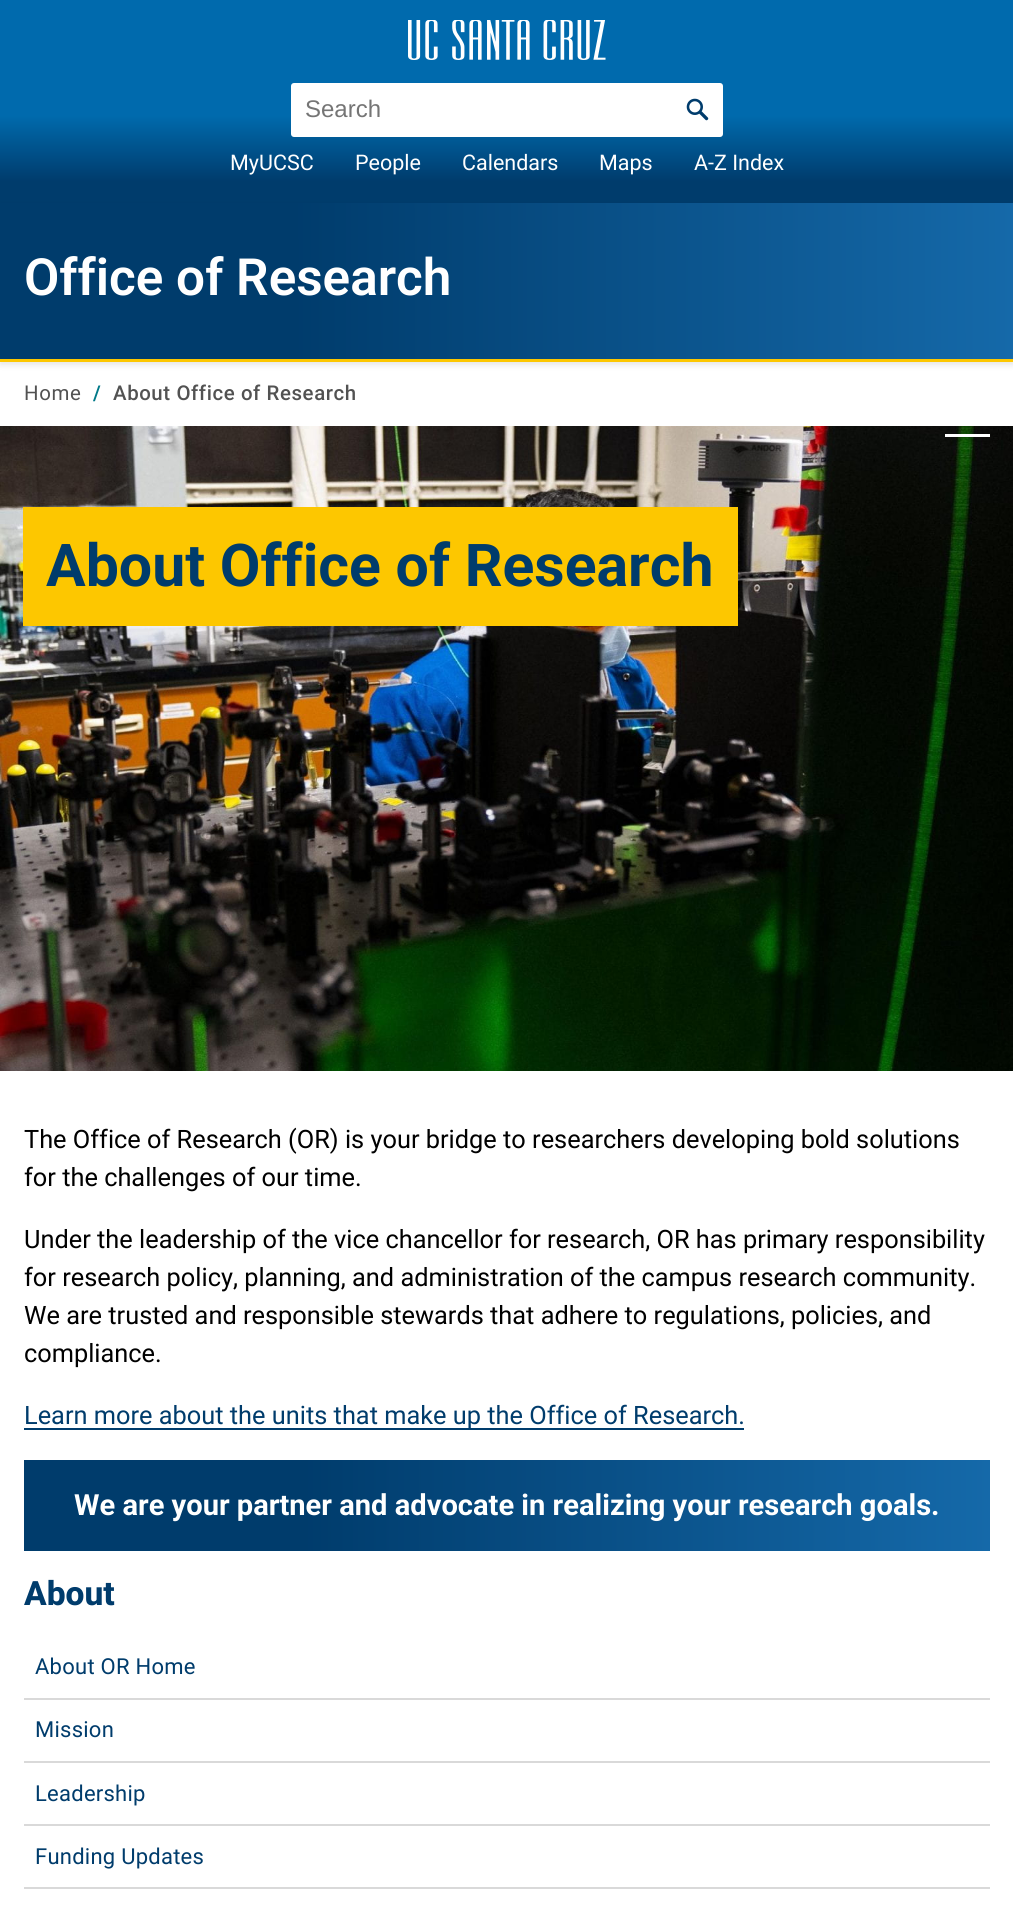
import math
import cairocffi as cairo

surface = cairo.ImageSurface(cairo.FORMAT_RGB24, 1013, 1908)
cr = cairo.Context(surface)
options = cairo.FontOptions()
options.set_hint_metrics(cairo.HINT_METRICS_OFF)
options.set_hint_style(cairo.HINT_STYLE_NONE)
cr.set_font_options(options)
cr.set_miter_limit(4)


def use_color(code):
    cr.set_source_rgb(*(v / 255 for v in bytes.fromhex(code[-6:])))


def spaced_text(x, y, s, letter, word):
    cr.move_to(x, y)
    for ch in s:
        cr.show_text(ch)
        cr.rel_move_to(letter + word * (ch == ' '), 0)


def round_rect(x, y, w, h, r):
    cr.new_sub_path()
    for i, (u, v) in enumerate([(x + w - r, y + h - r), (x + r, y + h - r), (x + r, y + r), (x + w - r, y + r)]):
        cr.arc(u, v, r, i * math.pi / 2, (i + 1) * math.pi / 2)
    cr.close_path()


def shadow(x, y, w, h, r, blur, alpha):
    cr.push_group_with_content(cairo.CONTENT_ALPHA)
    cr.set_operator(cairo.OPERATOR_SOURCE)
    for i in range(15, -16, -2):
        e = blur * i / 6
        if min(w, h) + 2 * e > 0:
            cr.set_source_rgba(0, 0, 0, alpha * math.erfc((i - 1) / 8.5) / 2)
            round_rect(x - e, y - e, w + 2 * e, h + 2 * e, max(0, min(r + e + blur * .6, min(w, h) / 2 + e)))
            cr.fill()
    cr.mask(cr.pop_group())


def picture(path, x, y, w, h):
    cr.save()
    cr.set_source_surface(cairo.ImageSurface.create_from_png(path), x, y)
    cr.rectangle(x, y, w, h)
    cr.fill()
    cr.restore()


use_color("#ffffff")
cr.paint()
gradient = cairo.LinearGradient(507, 203, 507, -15)
gradient.add_color_stop_rgba(0.1, 0, 0.235, 0.424, 1)
gradient.add_color_stop_rgba(0.4, 0, 0.416, 0.678, 1)
cr.set_source(gradient)
cr.rectangle(0, 0, 1013, 203)
cr.fill()
picture("img1.png", 408, 20, 198, 40)
use_color("#ffffff")
round_rect(292, 84, 430, 52, 2)
cr.fill_preserve()
cr.stroke()
cr.select_font_face("Liberation Sans")
cr.set_font_size(24)
use_color("#757575")
cr.move_to(305, 117)
cr.show_text("Search")
picture("img2.png", 686, 98, 23, 23)
cr.select_font_face("Roboto")
cr.set_font_size(21.5)
use_color("#ffffff")
cr.move_to(230, 170)
cr.show_text("MyUCSC")
cr.move_to(355, 170)
cr.show_text("People")
cr.move_to(462, 170)
cr.show_text("Calendars")
cr.move_to(599, 170)
cr.show_text("Maps")
cr.move_to(694, 170)
cr.show_text("A-Z Index")
use_color("#000000")
shadow(0, 206, 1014, 159, 0, 3, 0.1)
gradient = cairo.LinearGradient(0, 281, 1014, 280)
gradient.add_color_stop_rgba(0.29, 0, 0.235, 0.424, 1)
gradient.add_color_stop_rgba(1, 0.082, 0.412, 0.663, 1)
cr.set_source(gradient)
cr.rectangle(0, 203, 1013, 156)
cr.fill()
cr.select_font_face("Roboto SemiBold")
cr.set_font_size(51.25)
use_color("#ffffff")
cr.move_to(24, 295)
cr.show_text("Office of Research")
use_color("#fdc700")
cr.rectangle(0, 359, 1013, 3)
cr.fill()
picture("img3.png", 0, 426, 1013, 645)
use_color("#ffffff")
cr.rectangle(945, 434, 45, 3)
cr.fill()
cr.select_font_face("Roboto")
cr.set_font_size(20.4)
use_color("#525252")
spaced_text(24, 400, "Home", 0.6, 0)
cr.select_font_face("Roboto SemiBold")
use_color("#007988")
spaced_text(93, 400, "/", 0.6, 0)
cr.select_font_face("Roboto Medium")
use_color("#525252")
spaced_text(113, 400, "About Office of Research", 0.6, 0)
use_color("#fdc700")
cr.rectangle(23, 507, 715, 119)
cr.fill()
cr.select_font_face("Roboto", cairo.FONT_SLANT_NORMAL, cairo.FONT_WEIGHT_BOLD)
cr.set_font_size(59)
use_color("#003c6c")
cr.move_to(46, 586)
cr.show_text("About Office of Research")
cr.select_font_face("Roboto")
cr.set_font_size(25.35)
use_color("#000000")
cr.move_to(24, 1148)
cr.show_text("The Office of Research (OR) is your bridge to researchers developing bold solutions")
cr.move_to(24, 1186)
cr.show_text("for the challenges of our time.")
cr.move_to(24, 1248)
cr.show_text("Under the leadership of the vice chancellor for research, OR has primary responsibility")
cr.move_to(24, 1286)
cr.show_text("for research policy, planning, and administration of the campus research community.")
cr.move_to(24, 1324)
cr.show_text("We are trusted and responsible stewards that adhere to regulations, policies, and")
cr.move_to(24, 1362)
cr.show_text("compliance.")
use_color("#003c6c")
cr.rectangle(24, 1428, 720, 2)
cr.fill()
cr.move_to(24, 1424)
cr.show_text("Learn more about the units that make up the Office of Research.")
gradient = cairo.LinearGradient(24, 1505, 990, 1505)
gradient.add_color_stop_rgba(0.29, 0, 0.235, 0.424, 1)
gradient.add_color_stop_rgba(1, 0.082, 0.412, 0.663, 1)
cr.set_source(gradient)
cr.rectangle(24, 1460, 966, 91)
cr.fill()
cr.select_font_face("Roboto", cairo.FONT_SLANT_NORMAL, cairo.FONT_WEIGHT_BOLD)
cr.set_font_size(29.1)
use_color("#ffffff")
cr.move_to(74, 1515)
cr.show_text("We are your partner and advocate in realizing your research goals.")
cr.select_font_face("Roboto ExtraBold")
cr.set_font_size(33.5)
use_color("#003c6c")
cr.move_to(24, 1605)
cr.show_text("About")
use_color("#d9d9d9")
cr.rectangle(24, 1698, 966, 2)
cr.fill()
cr.select_font_face("Roboto")
cr.set_font_size(22)
use_color("#003c6c")
spaced_text(35, 1674, "About OR Home", 0.25, 0)
use_color("#d9d9d9")
cr.rectangle(24, 1761, 966, 2)
cr.fill()
use_color("#003c6c")
spaced_text(35, 1737, "Mission", 0.25, 0)
use_color("#d9d9d9")
cr.rectangle(24, 1824, 966, 2)
cr.fill()
use_color("#003c6c")
spaced_text(35, 1801, "Leadership", 0.25, 0)
use_color("#d9d9d9")
cr.rectangle(24, 1887, 966, 2)
cr.fill()
use_color("#003c6c")
spaced_text(35, 1864, "Funding Updates", 0.25, 0)
surface.write_to_png("result.png")
